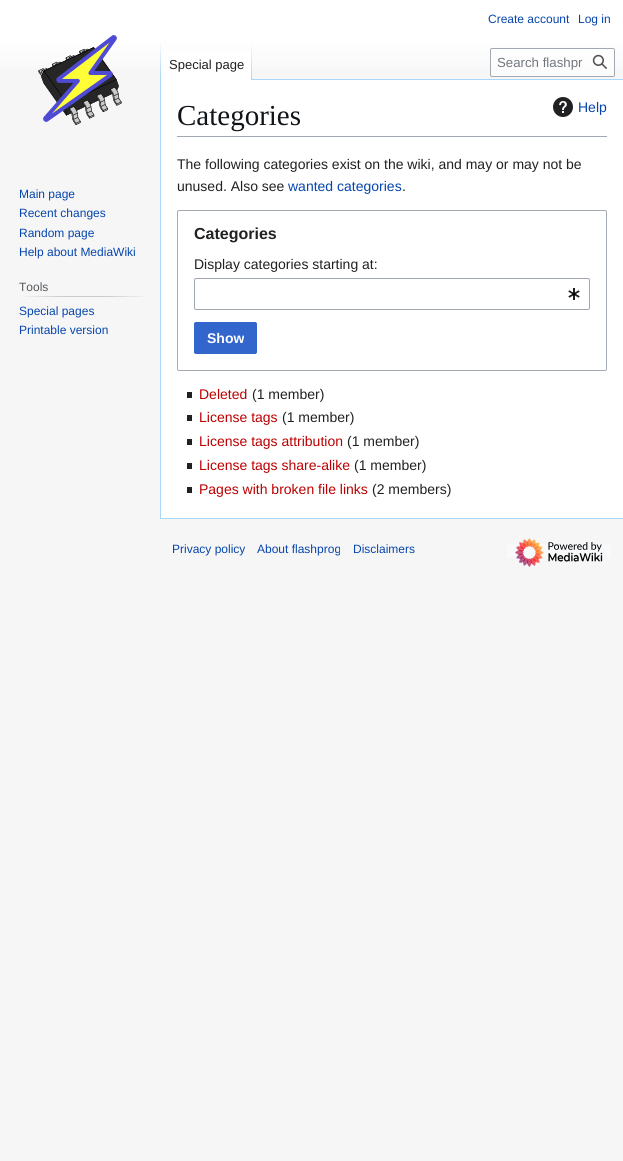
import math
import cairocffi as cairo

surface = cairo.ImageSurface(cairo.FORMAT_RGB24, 623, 1161)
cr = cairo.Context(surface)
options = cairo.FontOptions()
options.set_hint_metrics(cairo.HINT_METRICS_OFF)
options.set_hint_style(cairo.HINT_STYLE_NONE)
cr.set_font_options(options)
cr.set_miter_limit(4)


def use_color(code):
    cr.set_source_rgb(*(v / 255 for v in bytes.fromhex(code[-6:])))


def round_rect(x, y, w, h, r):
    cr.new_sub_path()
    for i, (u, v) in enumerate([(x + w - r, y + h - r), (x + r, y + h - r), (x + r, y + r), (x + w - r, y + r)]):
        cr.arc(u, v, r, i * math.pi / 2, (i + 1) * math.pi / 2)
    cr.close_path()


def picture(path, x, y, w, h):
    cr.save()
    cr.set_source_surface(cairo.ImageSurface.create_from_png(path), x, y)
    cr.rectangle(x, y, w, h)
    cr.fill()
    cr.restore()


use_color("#f6f6f6")
cr.paint()
gradient = cairo.LinearGradient(312, 0, 312, 80)
gradient.add_color_stop_rgba(0.5, 1, 1, 1, 1)
gradient.add_color_stop_rgba(1, 0.965, 0.965, 0.965, 1)
cr.set_source(gradient)
cr.rectangle(0, 0, 623, 69)
cr.fill()
cr.select_font_face("Liberation Sans")
cr.set_font_size(12)
use_color("#0645ad")
cr.move_to(488, 23)
cr.show_text("Create account")
cr.move_to(578, 23)
cr.show_text("Log in")
use_color("#a7d7f9")
cr.rectangle(160, 518, 463, 1)
cr.fill()
cr.rectangle(160, 79, 1, 440)
cr.fill()
gradient = cairo.LinearGradient(161, 40, 161, 80)
gradient.add_color_stop_rgba(0, 0.655, 0.843, 0.976, 0)
gradient.add_color_stop_rgba(1, 0.655, 0.843, 0.976, 1)
cr.set_source(gradient)
cr.rectangle(160, 40, 1, 40)
cr.fill()
use_color("#ffffff")
cr.rectangle(161, 51, 90, 29)
cr.fill()
gradient = cairo.LinearGradient(252, 40, 252, 80)
gradient.add_color_stop_rgba(0, 1, 1, 1, 1)
gradient.add_color_stop_rgba(1, 0.655, 0.843, 0.976, 1)
cr.set_source(gradient)
cr.rectangle(251, 40, 1, 40)
cr.fill()
cr.set_font_size(13)
use_color("#202122")
cr.move_to(169, 69)
cr.show_text("Special page")
cr.set_source_rgba(1, 1, 1, 0.5)
round_rect(490.5, 48.5, 124, 28, 1.5)
cr.fill_preserve()
use_color("#a2a9b1")
cr.set_line_width(1)
cr.stroke()
cr.set_font_size(13.25)
use_color("#72777d")
cr.move_to(497, 67)
cr.show_text("Search flashpr")
picture("img1.png", 592, 54, 15, 15)
picture("img2.png", 38, 35, 84, 90)
cr.set_font_size(12)
use_color("#0645ad")
cr.move_to(19, 198)
cr.show_text("Main page")
cr.move_to(19, 217)
cr.show_text("Recent changes")
cr.move_to(19, 237)
cr.show_text("Random page")
cr.move_to(19, 256)
cr.show_text("Help about MediaWiki")
gradient = cairo.LinearGradient(19, 297, 150, 297)
gradient.add_color_stop_rgba(0, 0.965, 0.965, 0.965, 1)
gradient.add_color_stop_rgba(0.33, 0.784, 0.8, 0.82, 1)
gradient.add_color_stop_rgba(0.66, 0.784, 0.8, 0.82, 1)
gradient.add_color_stop_rgba(1, 0.965, 0.965, 0.965, 1)
cr.set_source(gradient)
cr.rectangle(19, 296, 131, 1)
cr.fill()
use_color("#54595d")
cr.move_to(19, 291)
cr.show_text("Tools")
use_color("#0645ad")
cr.move_to(19, 315)
cr.show_text("Special pages")
cr.move_to(19, 334)
cr.show_text("Printable version")
use_color("#ffffff")
cr.rectangle(161, 80, 462, 438)
cr.fill()
use_color("#a7d7f9")
cr.rectangle(252, 79, 371, 1)
cr.fill()
use_color("#a2a9b1")
cr.rectangle(177, 136, 430, 1)
cr.fill()
cr.select_font_face("Liberation Serif")
cr.set_font_size(29)
use_color("#101418")
cr.move_to(177, 125)
cr.show_text("Categories")
picture("img3.png", 553, 97, 20, 20)
cr.select_font_face("Liberation Sans")
cr.set_font_size(14)
use_color("#0645ad")
cr.move_to(578, 112)
cr.show_text("Help")
use_color("#202122")
cr.move_to(177, 169)
cr.show_text("The following categories exist on the wiki, and may or may not be")
cr.move_to(177, 191)
cr.show_text("unused. Also see")
use_color("#0645ad")
cr.move_to(288, 191)
cr.show_text("wanted categories")
use_color("#202122")
cr.move_to(402, 191)
cr.show_text(".")
round_rect(177.5, 210.5, 429, 160, 1.5)
use_color("#a2a9b1")
cr.stroke()
cr.select_font_face("Liberation Sans", cairo.FONT_SLANT_NORMAL, cairo.FONT_WEIGHT_BOLD)
cr.set_font_size(16)
use_color("#202122")
cr.move_to(194, 239)
cr.show_text("Categories")
cr.select_font_face("Liberation Sans")
cr.set_font_size(14)
cr.move_to(194, 269)
cr.show_text("Display categories starting at:")
round_rect(194.5, 278.5, 395, 31, 1.5)
use_color("#a2a9b1")
cr.stroke()
picture("img4.png", 568, 288, 12, 12)
use_color("#3366cc")
round_rect(194.5, 322.5, 62, 31, 1.5)
cr.fill_preserve()
cr.stroke()
cr.select_font_face("Liberation Sans", cairo.FONT_SLANT_NORMAL, cairo.FONT_WEIGHT_BOLD)
use_color("#ffffff")
cr.move_to(207, 343)
cr.show_text("Show")
use_color("#202122")
cr.rectangle(187, 392, 5, 6)
cr.fill()
cr.select_font_face("Liberation Sans")
use_color("#ba0000")
cr.move_to(199, 399)
cr.show_text("Deleted")
use_color("#202122")
cr.move_to(252, 399)
cr.show_text("(1 member)")
cr.rectangle(187, 415, 5, 6)
cr.fill()
use_color("#ba0000")
cr.move_to(199, 422)
cr.show_text("License tags")
use_color("#202122")
cr.move_to(282, 422)
cr.show_text("(1 member)")
cr.rectangle(187, 439, 5, 6)
cr.fill()
use_color("#ba0000")
cr.move_to(199, 446)
cr.show_text("License tags attribution")
use_color("#202122")
cr.move_to(347, 446)
cr.show_text("(1 member)")
cr.rectangle(187, 463, 5, 6)
cr.fill()
use_color("#ba0000")
cr.move_to(199, 470)
cr.show_text("License tags share-alike")
use_color("#202122")
cr.move_to(354, 470)
cr.show_text("(1 member)")
cr.rectangle(187, 487, 5, 6)
cr.fill()
use_color("#ba0000")
cr.move_to(199, 494)
cr.show_text("Pages with broken file links")
use_color("#202122")
cr.move_to(372, 494)
cr.show_text("(2 members)")
cr.set_font_size(12)
use_color("#0645ad")
cr.move_to(172, 553)
cr.show_text("Privacy policy")
cr.move_to(257, 553)
cr.show_text("About flashprog")
cr.move_to(353, 553)
cr.show_text("Disclaimers")
use_color("#f8f9fa")
cr.rectangle(507, 544, 104, 14)
cr.fill()
picture("img5.png", 515, 538, 88, 29)
surface.write_to_png("result.png")
